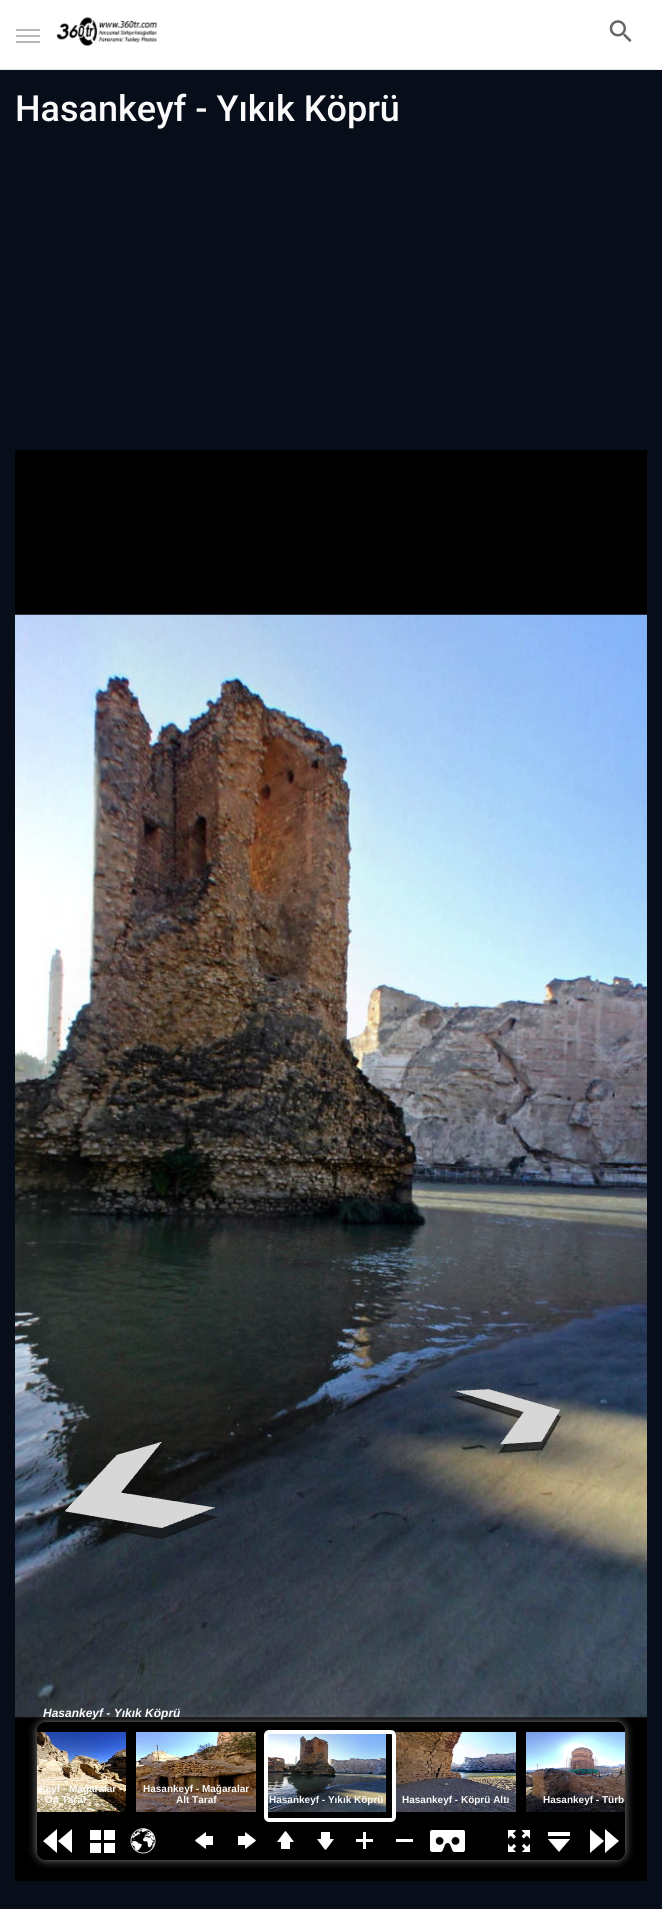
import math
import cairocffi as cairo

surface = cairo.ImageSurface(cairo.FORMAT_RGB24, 662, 1909)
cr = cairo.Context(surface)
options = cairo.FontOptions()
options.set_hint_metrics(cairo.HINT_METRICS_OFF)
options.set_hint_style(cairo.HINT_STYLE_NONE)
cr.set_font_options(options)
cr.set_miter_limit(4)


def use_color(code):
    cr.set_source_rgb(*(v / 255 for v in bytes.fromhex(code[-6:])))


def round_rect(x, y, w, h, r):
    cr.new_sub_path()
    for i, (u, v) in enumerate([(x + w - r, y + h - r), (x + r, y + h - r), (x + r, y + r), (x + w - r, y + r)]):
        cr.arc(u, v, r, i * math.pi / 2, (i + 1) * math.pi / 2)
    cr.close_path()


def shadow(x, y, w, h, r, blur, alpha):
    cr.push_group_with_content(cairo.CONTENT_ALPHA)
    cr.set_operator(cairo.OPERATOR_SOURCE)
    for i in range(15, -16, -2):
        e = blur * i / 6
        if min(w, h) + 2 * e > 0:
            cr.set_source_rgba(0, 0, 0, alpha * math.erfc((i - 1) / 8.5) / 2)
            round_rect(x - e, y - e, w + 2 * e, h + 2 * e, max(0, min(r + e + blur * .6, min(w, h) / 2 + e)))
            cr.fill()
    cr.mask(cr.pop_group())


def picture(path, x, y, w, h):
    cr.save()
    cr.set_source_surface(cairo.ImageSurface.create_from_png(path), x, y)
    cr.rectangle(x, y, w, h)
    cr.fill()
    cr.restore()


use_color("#070d19")
cr.paint()
use_color("#ffffff")
cr.rectangle(0, 0, 662, 69)
cr.fill()
use_color("#e8e8e8")
cr.rectangle(0, 69, 662, 1)
cr.fill()
use_color("#b8b8b8")
cr.rectangle(16, 35, 24, 2)
cr.fill()
cr.rectangle(16, 29, 24, 2)
cr.fill()
cr.rectangle(16, 41, 24, 2)
cr.fill()
picture("img1.png", 56, 17, 101, 29)
picture("img2.png", 609, 20, 23, 22)
cr.select_font_face("Roboto Medium")
cr.set_font_size(36)
use_color("#fafafa")
cr.move_to(15, 121)
cr.show_text("Hasankeyf - Yıkık Köprü")
use_color("#000000")
cr.rectangle(15, 450, 632, 1431)
cr.fill()
picture("img3.png", 15, 614, 632, 1104)
cr.save()
cr.rectangle(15, 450, 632, 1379)
cr.clip()
cr.set_fill_rule(cairo.FILL_RULE_EVEN_ODD)
cr.new_path()
cr.move_to(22, 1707)
cr.line_to(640, 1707)
cr.line_to(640, 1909)
cr.line_to(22, 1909)
cr.close_path()
cr.move_to(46, 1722)
cr.line_to(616, 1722)
cr.curve_to(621, 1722, 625, 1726, 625, 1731)
cr.line_to(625, 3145)
cr.curve_to(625, 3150, 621, 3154, 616, 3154)
cr.line_to(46, 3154)
cr.curve_to(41, 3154, 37, 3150, 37, 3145)
cr.line_to(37, 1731)
cr.curve_to(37, 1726, 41, 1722, 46, 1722)
cr.close_path()
cr.clip()
use_color("#ffffff")
shadow(37, 1722, 588, 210, 9, 4.5, 0.5)
cr.restore()
cr.set_source_rgba(0, 0, 0, 0.5)
cr.new_path()
cr.move_to(46, 1722)
cr.line_to(616, 1722)
cr.curve_to(621, 1722, 625, 1726, 625, 1731)
cr.line_to(625, 1829)
cr.line_to(37, 1829)
cr.line_to(37, 1731)
cr.curve_to(37, 1726, 41, 1722, 46, 1722)
cr.close_path()
cr.fill()
cr.select_font_face("Liberation Sans", cairo.FONT_SLANT_ITALIC, cairo.FONT_WEIGHT_BOLD)
cr.set_font_size(12)
use_color("#fafafa")
cr.move_to(43, 1717)
cr.show_text("Hasankeyf - Yıkık Köprü")
picture("img4.png", 37, 1732, 89, 80)
cr.save()
round_rect(37, 1722, 588, 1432, 9)
cr.clip()
cr.select_font_face("Liberation Sans", cairo.FONT_SLANT_NORMAL, cairo.FONT_WEIGHT_BOLD)
cr.set_font_size(10)
cr.move_to(34, 1792)
cr.show_text("nkeyf - Mağaralar -")
cr.restore()
cr.select_font_face("Liberation Sans", cairo.FONT_SLANT_NORMAL, cairo.FONT_WEIGHT_BOLD)
cr.set_font_size(10)
cr.move_to(45, 1803)
cr.show_text("Ön Taraf")
picture("img5.png", 136, 1732, 120, 80)
cr.move_to(143, 1792)
cr.show_text("Hasankeyf - Mağaralar")
cr.move_to(176, 1803)
cr.show_text("Alt Taraf")
picture("img6.png", 268, 1734, 118, 78)
round_rect(266, 1732, 128, 88, 3)
use_color("#ffffff")
cr.set_line_width(4)
cr.stroke()
use_color("#fafafa")
cr.move_to(269, 1803)
cr.show_text("Hasankeyf - Yıkık Köprü")
picture("img7.png", 396, 1732, 120, 80)
cr.move_to(402, 1803)
cr.show_text("Hasankeyf - Köprü Altı")
picture("img8.png", 526, 1732, 99, 80)
cr.move_to(543, 1803)
cr.show_text("Hasankeyf - Türb")
cr.save()
cr.rectangle(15, 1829, 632, 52)
cr.clip()
cr.set_fill_rule(cairo.FILL_RULE_EVEN_ODD)
cr.new_path()
cr.move_to(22, 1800)
cr.line_to(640, 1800)
cr.line_to(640, 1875)
cr.line_to(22, 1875)
cr.close_path()
cr.move_to(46, 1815)
cr.line_to(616, 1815)
cr.curve_to(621, 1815, 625, 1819, 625, 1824)
cr.line_to(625, 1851)
cr.curve_to(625, 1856, 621, 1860, 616, 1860)
cr.line_to(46, 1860)
cr.curve_to(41, 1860, 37, 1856, 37, 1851)
cr.line_to(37, 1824)
cr.curve_to(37, 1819, 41, 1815, 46, 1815)
cr.close_path()
cr.clip()
use_color("#ffffff")
shadow(37, 1815, 588, 45, 9, 4.5, 0.5)
cr.restore()
cr.set_source_rgba(0, 0, 0, 0.5)
cr.new_path()
cr.move_to(37, 1829)
cr.line_to(625, 1829)
cr.line_to(625, 1851)
cr.curve_to(625, 1856, 621, 1860, 616, 1860)
cr.line_to(46, 1860)
cr.curve_to(41, 1860, 37, 1856, 37, 1851)
cr.close_path()
cr.fill()
picture("img9.png", 43, 1829, 29, 24)
picture("img10.png", 90, 1830, 25, 23)
picture("img11.png", 130, 1828, 26, 26)
picture("img12.png", 195, 1831, 18, 19)
picture("img13.png", 238, 1831, 18, 19)
picture("img14.png", 276, 1831, 19, 18)
picture("img15.png", 316, 1832, 19, 18)
picture("img16.png", 356, 1832, 17, 17)
use_color("#ffffff")
cr.rectangle(396, 1839, 17, 3)
cr.fill()
picture("img17.png", 430, 1830, 35, 22)
picture("img18.png", 508, 1830, 22, 22)
picture("img19.png", 548, 1832, 22, 20)
picture("img20.png", 590, 1829, 29, 24)
surface.write_to_png("result.png")
